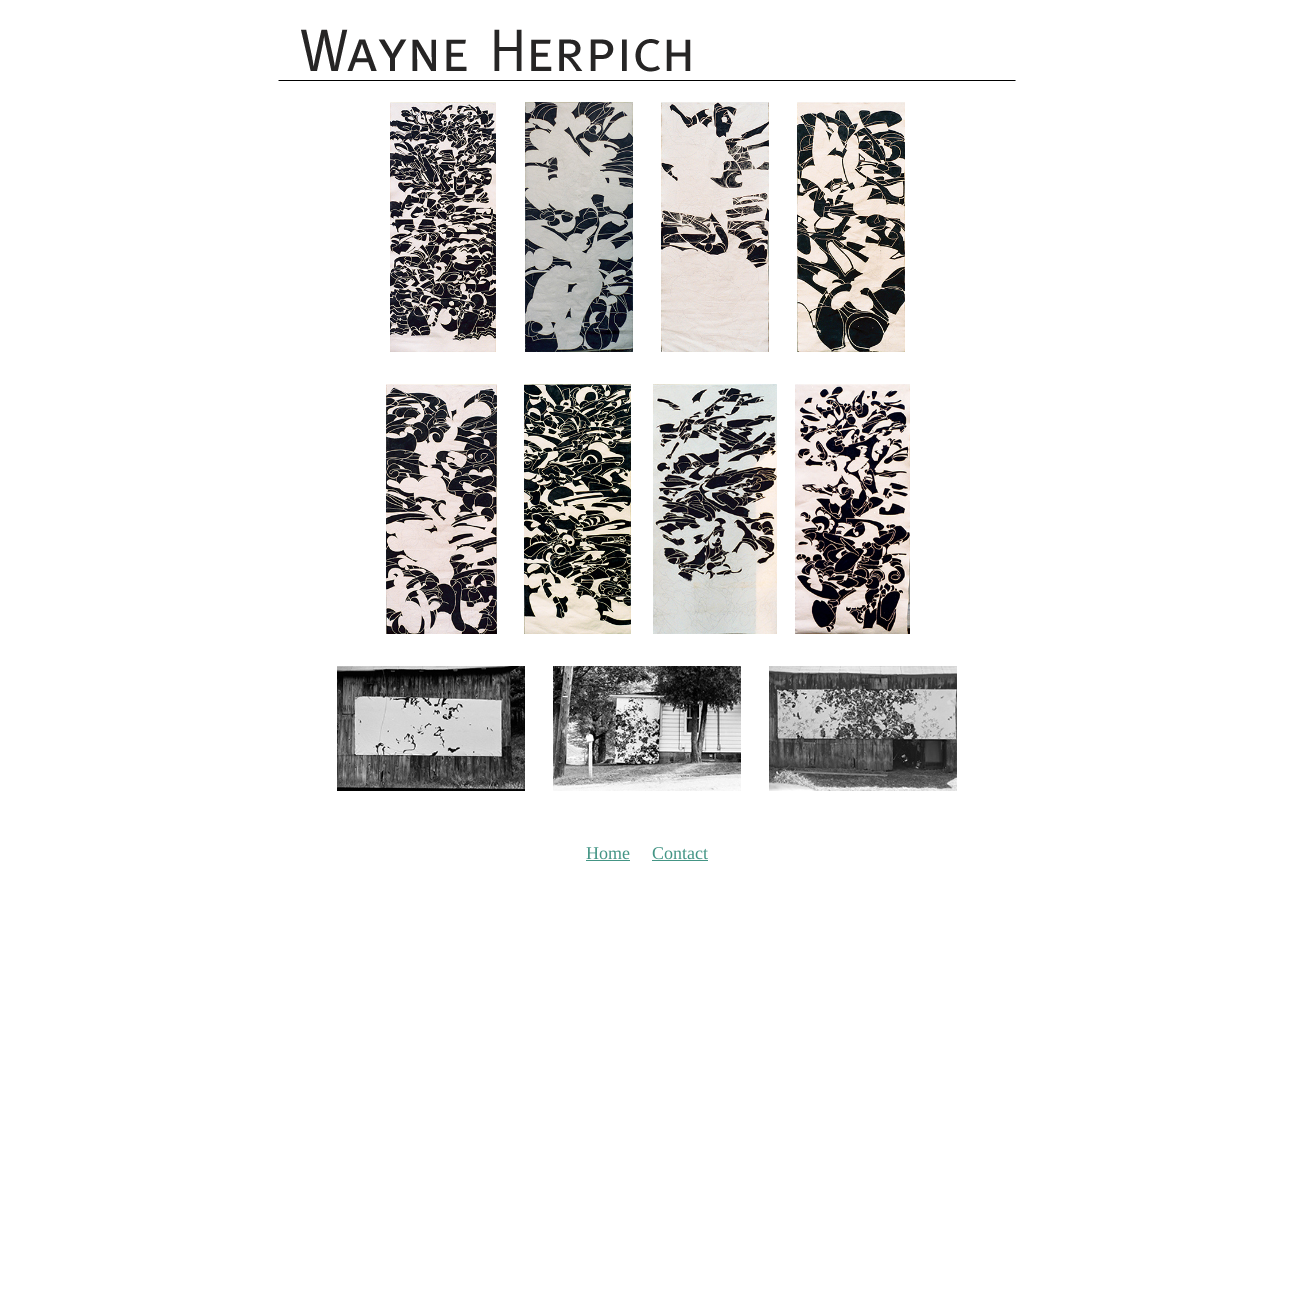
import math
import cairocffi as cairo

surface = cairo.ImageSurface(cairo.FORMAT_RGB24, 1294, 1314)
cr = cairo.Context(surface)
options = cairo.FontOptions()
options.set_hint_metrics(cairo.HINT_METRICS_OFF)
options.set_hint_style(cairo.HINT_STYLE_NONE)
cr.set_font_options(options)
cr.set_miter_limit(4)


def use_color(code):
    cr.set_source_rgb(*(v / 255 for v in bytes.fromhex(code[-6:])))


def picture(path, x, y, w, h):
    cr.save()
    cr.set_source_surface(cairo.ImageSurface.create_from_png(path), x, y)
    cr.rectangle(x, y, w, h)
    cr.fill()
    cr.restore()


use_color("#ffffff")
cr.paint()
picture("img1.png", 278, 29, 738, 52)
picture("img2.png", 390, 102, 106, 250)
picture("img3.png", 525, 102, 108, 250)
picture("img4.png", 661, 102, 108, 250)
picture("img5.png", 797, 102, 108, 250)
picture("img6.png", 386, 384, 111, 250)
picture("img7.png", 524, 384, 107, 250)
picture("img8.png", 653, 384, 124, 250)
picture("img9.png", 795, 384, 115, 250)
picture("img10.png", 337, 666, 188, 125)
picture("img11.png", 553, 666, 188, 125)
picture("img12.png", 769, 666, 188, 125)
cr.select_font_face("Liberation Serif")
cr.set_font_size(18)
use_color("#449585")
cr.move_to(586, 859)
cr.show_text("Home")
cr.rectangle(586, 860, 44, 1)
cr.fill()
cr.move_to(652, 859)
cr.show_text("Contact")
cr.rectangle(652, 860, 56, 1)
cr.fill()
surface.write_to_png("result.png")
